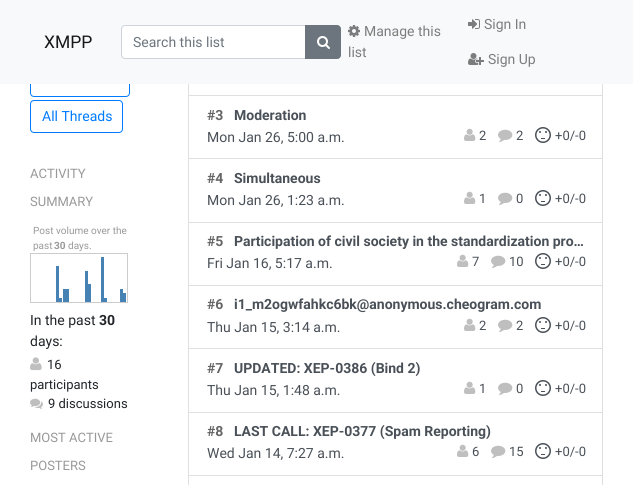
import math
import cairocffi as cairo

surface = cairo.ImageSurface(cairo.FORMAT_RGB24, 633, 485)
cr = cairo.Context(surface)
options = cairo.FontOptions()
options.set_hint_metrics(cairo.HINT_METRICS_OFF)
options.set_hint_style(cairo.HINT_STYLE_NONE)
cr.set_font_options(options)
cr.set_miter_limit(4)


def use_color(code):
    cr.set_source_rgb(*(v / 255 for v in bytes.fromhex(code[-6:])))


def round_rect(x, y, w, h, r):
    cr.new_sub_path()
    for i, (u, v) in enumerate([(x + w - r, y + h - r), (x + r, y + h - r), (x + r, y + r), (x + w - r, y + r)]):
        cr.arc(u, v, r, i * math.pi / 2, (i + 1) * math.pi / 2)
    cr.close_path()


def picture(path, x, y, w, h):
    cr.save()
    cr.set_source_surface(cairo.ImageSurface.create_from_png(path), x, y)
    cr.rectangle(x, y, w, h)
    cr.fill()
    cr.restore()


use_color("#ffffff")
cr.paint()
round_rect(30.5, 43.5, 99, 53, 3.5)
use_color("#007bff")
cr.set_line_width(1)
cr.stroke()
cr.rectangle(188.5, 32.5, 414, 63)
use_color("#dfdfdf")
cr.stroke()
use_color("#f8f9fa")
cr.rectangle(0, 0, 633, 84)
cr.fill()
cr.select_font_face("Roboto")
cr.set_font_size(17.5)
use_color("#191919")
cr.move_to(44, 48)
cr.show_text("XMPP")
use_color("#ffffff")
cr.new_path()
cr.move_to(124.5, 26)
cr.line_to(305, 26)
cr.line_to(305, 58)
cr.line_to(124.5, 58)
cr.curve_to(123, 58, 122, 57, 122, 55.5)
cr.line_to(122, 28.5)
cr.curve_to(122, 27, 123, 26, 124.5, 26)
cr.close_path()
cr.fill()
cr.new_path()
cr.move_to(125, 25.5)
cr.line_to(305.5, 25.5)
cr.line_to(305.5, 58.5)
cr.line_to(125, 58.5)
cr.curve_to(123, 58.5, 121.5, 57, 121.5, 55)
cr.line_to(121.5, 29)
cr.curve_to(121.5, 27, 123, 25.5, 125, 25.5)
cr.close_path()
use_color("#ced4da")
cr.stroke()
cr.set_font_size(14)
use_color("#6c757d")
cr.move_to(133, 47)
cr.show_text("Search this list")
cr.new_path()
cr.move_to(305.5, 25.5)
cr.line_to(337, 25.5)
cr.curve_to(339, 25.5, 340.5, 27, 340.5, 29)
cr.line_to(340.5, 55)
cr.curve_to(340.5, 57, 339, 58.5, 337, 58.5)
cr.line_to(305.5, 58.5)
cr.close_path()
cr.fill_preserve()
cr.stroke()
picture("img1.png", 317, 36, 13, 13)
picture("img2.png", 348, 25, 12, 12)
use_color("#7c7d7d")
cr.move_to(364, 36)
cr.show_text("Manage this")
cr.move_to(348, 57)
cr.show_text("list")
picture("img3.png", 468, 19, 12, 10)
cr.move_to(484, 29)
cr.show_text("Sign In")
picture("img4.png", 468, 53, 16, 12)
cr.move_to(488, 64)
cr.show_text("Sign Up")
round_rect(30.5, 100.5, 92, 32, 3.5)
use_color("#007bff")
cr.stroke()
cr.move_to(42, 121)
cr.show_text("All Threads")
cr.set_font_size(13)
use_color("#999999")
cr.move_to(30, 178)
cr.show_text("ACTIVITY")
cr.move_to(30, 206)
cr.show_text("SUMMARY")
cr.set_font_size(10)
cr.move_to(33, 234)
cr.show_text("Post volume over the")
cr.move_to(33, 249)
cr.show_text("past")
cr.select_font_face("Roboto", cairo.FONT_SLANT_NORMAL, cairo.FONT_WEIGHT_BOLD)
cr.move_to(54, 249)
cr.show_text("30")
cr.select_font_face("Roboto")
cr.move_to(68, 249)
cr.show_text("days.")
cr.rectangle(30.5, 253.5, 97, 49)
use_color("#cccccc")
cr.stroke()
use_color("#4682b4")
cr.rectangle(56, 266, 3, 36)
cr.fill()
cr.rectangle(59, 298, 3, 4)
cr.fill()
cr.rectangle(63, 289, 6, 13)
cr.fill()
cr.rectangle(85, 271, 3, 31)
cr.fill()
cr.rectangle(88, 284, 3, 18)
cr.fill()
cr.rectangle(101, 257, 3, 45)
cr.fill()
cr.rectangle(104, 298, 3, 4)
cr.fill()
cr.rectangle(120, 289, 3, 13)
cr.fill()
cr.rectangle(123, 293, 3, 9)
cr.fill()
cr.set_font_size(14)
use_color("#212529")
cr.move_to(30, 325)
cr.show_text("In the past")
cr.select_font_face("Roboto", cairo.FONT_SLANT_NORMAL, cairo.FONT_WEIGHT_BOLD)
cr.move_to(99, 325)
cr.show_text("30")
cr.select_font_face("Roboto")
cr.move_to(30, 346)
cr.show_text("days:")
picture("img5.png", 30, 357, 12, 14)
cr.set_font_size(13)
cr.move_to(47, 369)
cr.show_text("16")
cr.move_to(30, 389)
cr.show_text("participants")
picture("img6.png", 30, 398, 13, 11)
cr.move_to(48, 408)
cr.show_text("9 discussions")
use_color("#999999")
cr.move_to(30, 442)
cr.show_text("MOST ACTIVE")
cr.move_to(30, 470)
cr.show_text("POSTERS")
cr.rectangle(188.5, 95.5, 414, 63)
use_color("#dfdfdf")
cr.stroke()
cr.select_font_face("Roboto", cairo.FONT_SLANT_NORMAL, cairo.FONT_WEIGHT_BOLD)
cr.set_font_size(14)
use_color("#666666")
cr.move_to(207, 120)
cr.show_text("#3")
use_color("#495057")
cr.move_to(234, 120)
cr.show_text("Moderation")
cr.select_font_face("Roboto")
cr.move_to(207, 142)
cr.show_text("Mon Jan 26, 5:00 a.m.")
picture("img7.png", 464, 128, 12, 13)
cr.set_font_size(13)
cr.move_to(479, 140)
cr.show_text("2")
picture("img8.png", 498, 129, 15, 13)
cr.move_to(516, 140)
cr.show_text("2")
picture("img9.png", 535, 127, 16, 16)
cr.move_to(555, 140)
cr.show_text("+0/-0")
cr.rectangle(188.5, 158.5, 414, 64)
use_color("#dfdfdf")
cr.stroke()
cr.select_font_face("Roboto", cairo.FONT_SLANT_NORMAL, cairo.FONT_WEIGHT_BOLD)
cr.set_font_size(14)
use_color("#666666")
cr.move_to(207, 183)
cr.show_text("#4")
use_color("#495057")
cr.move_to(234, 183)
cr.show_text("Simultaneous")
cr.select_font_face("Roboto")
cr.move_to(207, 205)
cr.show_text("Mon Jan 26, 1:23 a.m.")
picture("img7.png", 464, 191, 12, 13)
cr.set_font_size(13)
cr.move_to(479, 203)
cr.show_text("1")
picture("img8.png", 498, 192, 15, 13)
cr.move_to(516, 203)
cr.show_text("0")
picture("img9.png", 535, 190, 16, 16)
cr.move_to(555, 203)
cr.show_text("+0/-0")
cr.rectangle(188.5, 222.5, 414, 63)
use_color("#dfdfdf")
cr.stroke()
cr.select_font_face("Roboto", cairo.FONT_SLANT_NORMAL, cairo.FONT_WEIGHT_BOLD)
cr.set_font_size(14)
use_color("#666666")
cr.move_to(207, 246)
cr.show_text("#5")
use_color("#495057")
cr.move_to(234, 246)
cr.show_text("Participation of civil society in the standardization pro…")
cr.select_font_face("Roboto")
cr.move_to(207, 268)
cr.show_text("Fri Jan 16, 5:17 a.m.")
picture("img7.png", 457, 254, 12, 13)
cr.set_font_size(13)
cr.move_to(472, 266)
cr.show_text("7")
picture("img8.png", 491, 255, 15, 13)
cr.move_to(509, 266)
cr.show_text("10")
picture("img9.png", 535, 253, 16, 16)
cr.move_to(555, 266)
cr.show_text("+0/-0")
cr.rectangle(188.5, 285.5, 414, 63)
use_color("#dfdfdf")
cr.stroke()
cr.select_font_face("Roboto", cairo.FONT_SLANT_NORMAL, cairo.FONT_WEIGHT_BOLD)
cr.set_font_size(14)
use_color("#666666")
cr.move_to(207, 309)
cr.show_text("#6")
use_color("#495057")
cr.move_to(234, 309)
cr.show_text("i1_m2ogwfahkc6bk@anonymous.cheogram.com")
cr.select_font_face("Roboto")
cr.move_to(207, 332)
cr.show_text("Thu Jan 15, 3:14 a.m.")
picture("img7.png", 464, 318, 12, 13)
cr.set_font_size(13)
cr.move_to(479, 330)
cr.show_text("2")
picture("img8.png", 498, 319, 15, 13)
cr.move_to(516, 330)
cr.show_text("2")
picture("img9.png", 535, 317, 16, 16)
cr.move_to(555, 330)
cr.show_text("+0/-0")
cr.rectangle(188.5, 348.5, 414, 64)
use_color("#dfdfdf")
cr.stroke()
cr.select_font_face("Roboto", cairo.FONT_SLANT_NORMAL, cairo.FONT_WEIGHT_BOLD)
cr.set_font_size(14)
use_color("#666666")
cr.move_to(207, 373)
cr.show_text("#7")
use_color("#495057")
cr.move_to(234, 373)
cr.show_text("UPDATED: XEP-0386 (Bind 2)")
cr.select_font_face("Roboto")
cr.move_to(207, 395)
cr.show_text("Thu Jan 15, 1:48 a.m.")
picture("img7.png", 464, 381, 12, 13)
cr.set_font_size(13)
cr.move_to(479, 393)
cr.show_text("1")
picture("img8.png", 498, 382, 15, 13)
cr.move_to(516, 393)
cr.show_text("0")
picture("img9.png", 535, 380, 16, 16)
cr.move_to(555, 393)
cr.show_text("+0/-0")
cr.rectangle(188.5, 412.5, 414, 63)
use_color("#dfdfdf")
cr.stroke()
cr.select_font_face("Roboto", cairo.FONT_SLANT_NORMAL, cairo.FONT_WEIGHT_BOLD)
cr.set_font_size(14)
use_color("#666666")
cr.move_to(207, 436)
cr.show_text("#8")
use_color("#495057")
cr.move_to(234, 436)
cr.show_text("LAST CALL: XEP-0377 (Spam Reporting)")
cr.select_font_face("Roboto")
cr.move_to(207, 458)
cr.show_text("Wed Jan 14, 7:27 a.m.")
picture("img7.png", 457, 444, 12, 13)
cr.set_font_size(13)
cr.move_to(472, 456)
cr.show_text("6")
picture("img8.png", 491, 445, 15, 13)
cr.move_to(509, 456)
cr.show_text("15")
picture("img9.png", 535, 443, 16, 16)
cr.move_to(555, 456)
cr.show_text("+0/-0")
cr.rectangle(188.5, 475.5, 414, 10)
use_color("#dfdfdf")
cr.stroke()
surface.write_to_png("result.png")
